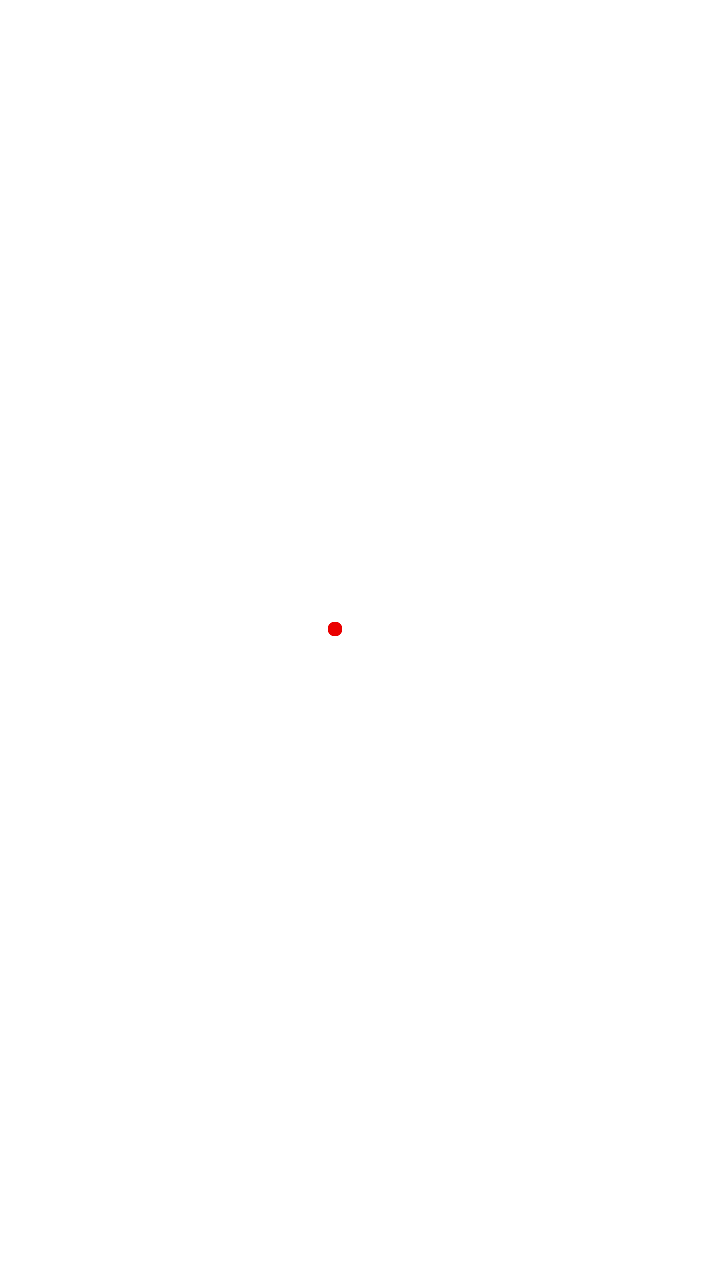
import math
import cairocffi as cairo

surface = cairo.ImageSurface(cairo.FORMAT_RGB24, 728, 1272)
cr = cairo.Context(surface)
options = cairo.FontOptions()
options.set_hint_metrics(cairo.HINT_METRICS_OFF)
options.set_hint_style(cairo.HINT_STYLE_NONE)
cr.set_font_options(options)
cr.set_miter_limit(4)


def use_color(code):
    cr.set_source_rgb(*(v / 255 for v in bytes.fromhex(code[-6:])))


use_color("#ffffff")
cr.paint()
gradient = cairo.RadialGradient(335, 629, 0, 335, 629, 7.5)
gradient.add_color_stop_rgba(0.9, 0.918, 0, 0, 1)
gradient.add_color_stop_rgba(1, 1, 1, 1, 1)
cr.set_source(gradient)
cr.rectangle(328, 622, 14, 14)
cr.fill()
gradient = cairo.RadialGradient(335, 629, 0, 335, 629, 7.5)
gradient.add_color_stop_rgba(0.9, 0.918, 0, 0, 1)
gradient.add_color_stop_rgba(1, 0.918, 0, 0, 0)
cr.set_source(gradient)
cr.rectangle(328, 622, 14, 14)
cr.fill()
cr.rectangle(328, 622, 14, 14)
cr.fill()
cr.rectangle(328, 622, 14, 14)
cr.fill()
surface.write_to_png("result.png")
